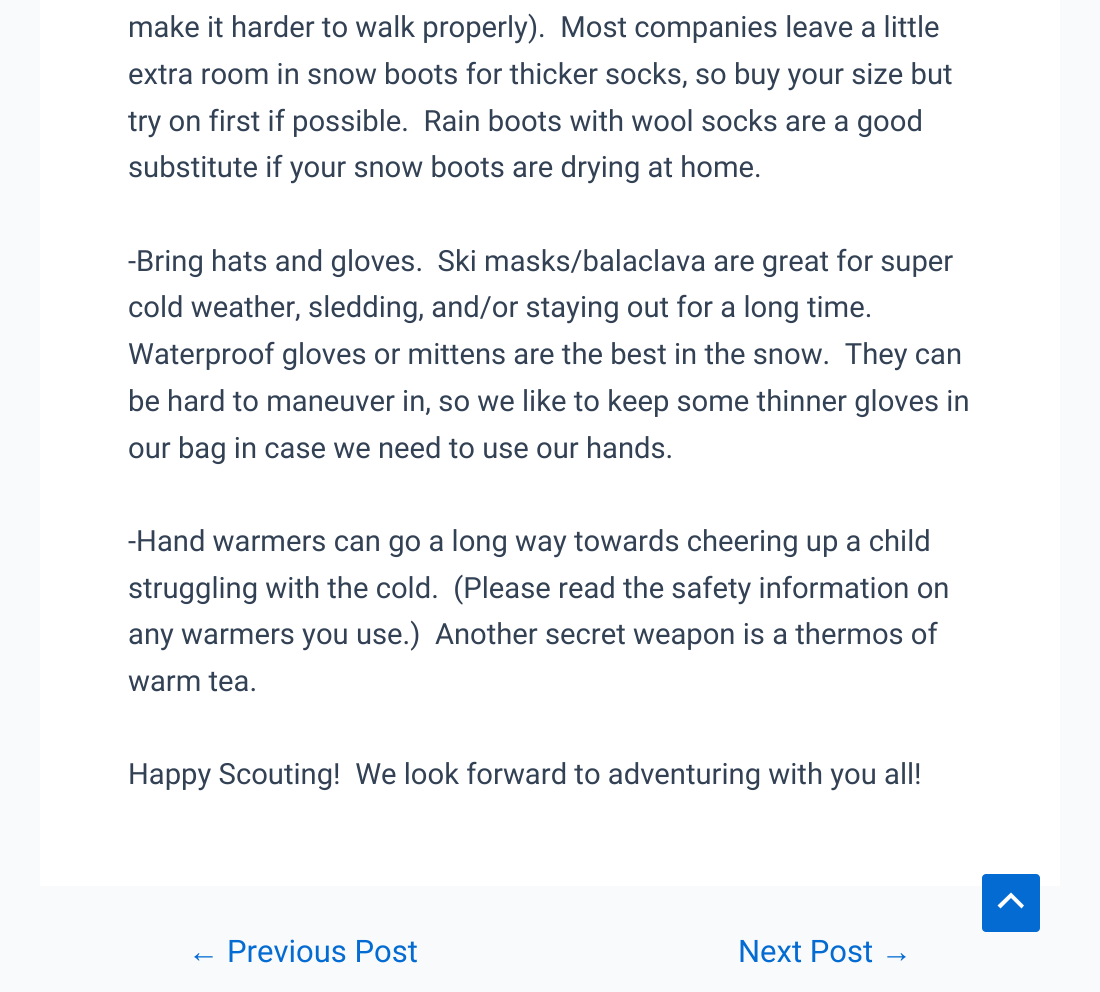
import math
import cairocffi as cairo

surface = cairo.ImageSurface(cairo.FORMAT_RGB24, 1100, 992)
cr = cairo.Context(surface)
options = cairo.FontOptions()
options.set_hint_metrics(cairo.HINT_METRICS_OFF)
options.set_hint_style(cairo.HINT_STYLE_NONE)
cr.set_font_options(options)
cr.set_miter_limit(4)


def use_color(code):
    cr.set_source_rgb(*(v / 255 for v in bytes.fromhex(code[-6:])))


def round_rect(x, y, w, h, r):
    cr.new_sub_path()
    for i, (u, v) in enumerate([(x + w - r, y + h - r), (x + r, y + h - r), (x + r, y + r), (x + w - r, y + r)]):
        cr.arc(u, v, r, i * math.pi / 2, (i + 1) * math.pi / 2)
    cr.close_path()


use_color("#f9fafb")
cr.paint()
use_color("#ffffff")
cr.rectangle(40, 0, 1020, 886)
cr.fill()
cr.select_font_face("Roboto")
cr.set_font_size(29.2)
use_color("#334155")
cr.move_to(128, 37)
cr.show_text("make it harder to walk properly).  Most companies leave a little")
cr.move_to(128, 84)
cr.show_text("extra room in snow boots for thicker socks, so buy your size but")
cr.move_to(128, 131)
cr.show_text("try on first if possible.  Rain boots with wool socks are a good")
cr.move_to(128, 177)
cr.show_text("substitute if your snow boots are drying at home.")
cr.move_to(128, 271)
cr.show_text("-Bring hats and gloves.  Ski masks/balaclava are great for super")
cr.move_to(128, 317)
cr.show_text("cold weather, sledding, and/or staying out for a long time.")
cr.move_to(128, 364)
cr.show_text("Waterproof gloves or mittens are the best in the snow.  They can")
cr.move_to(128, 411)
cr.show_text("be hard to maneuver in, so we like to keep some thinner gloves in")
cr.move_to(128, 458)
cr.show_text("our bag in case we need to use our hands.")
cr.move_to(128, 551)
cr.show_text("-Hand warmers can go a long way towards cheering up a child")
cr.move_to(128, 598)
cr.show_text("struggling with the cold.  (Please read the safety information on")
cr.move_to(128, 644)
cr.show_text("any warmers you use.)  Another secret weapon is a thermos of")
cr.move_to(128, 691)
cr.show_text("warm tea.")
cr.move_to(128, 784)
cr.show_text("Happy Scouting!  We look forward to adventuring with you all!")
cr.select_font_face("Liberation Sans")
cr.set_font_size(31)
use_color("#046bd2")
cr.move_to(188, 962)
cr.show_text("←")
cr.select_font_face("Roboto")
cr.move_to(227, 962)
cr.show_text("Previous Post")
cr.move_to(738, 962)
cr.show_text("Next Post")
cr.select_font_face("Liberation Sans")
cr.move_to(881, 962)
cr.show_text("→")
round_rect(982, 874, 58, 58, 4)
cr.fill()
use_color("#ffffff")
cr.new_path()
cr.move_to(1024, 905.5)
cr.line_to(1011, 892.5)
cr.line_to(997.5, 905.5)
cr.line_to(1000.5, 908.5)
cr.line_to(1011, 898)
cr.line_to(1021.5, 908.5)
cr.close_path()
cr.fill()
surface.write_to_png("result.png")
